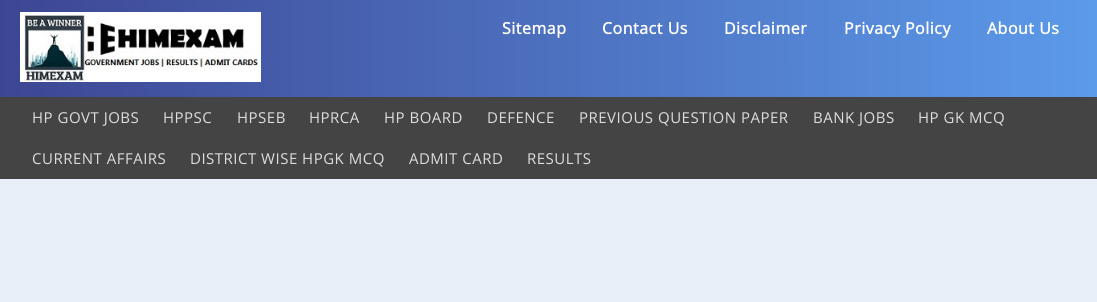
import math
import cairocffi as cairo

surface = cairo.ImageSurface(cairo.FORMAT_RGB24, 1097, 302)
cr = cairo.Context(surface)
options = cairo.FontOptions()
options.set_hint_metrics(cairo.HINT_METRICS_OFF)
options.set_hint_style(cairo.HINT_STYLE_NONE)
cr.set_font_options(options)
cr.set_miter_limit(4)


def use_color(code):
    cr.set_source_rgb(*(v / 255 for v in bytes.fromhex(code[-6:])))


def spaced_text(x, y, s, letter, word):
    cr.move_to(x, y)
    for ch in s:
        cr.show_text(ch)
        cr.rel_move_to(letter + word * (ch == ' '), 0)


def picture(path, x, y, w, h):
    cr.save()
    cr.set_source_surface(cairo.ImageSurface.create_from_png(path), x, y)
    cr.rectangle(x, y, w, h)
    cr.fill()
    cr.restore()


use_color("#e9eff9")
cr.paint()
gradient = cairo.LinearGradient(0, 49, 1097, 48)
gradient.add_color_stop_rgba(0, 0.239, 0.275, 0.576, 1)
gradient.add_color_stop_rgba(1, 0.361, 0.604, 0.918, 1)
cr.set_source(gradient)
cr.rectangle(0, 0, 1097, 97)
cr.fill()
picture("img1.png", 20, 12, 241, 70)
cr.select_font_face("Open Sans", cairo.FONT_SLANT_NORMAL, cairo.FONT_WEIGHT_BOLD)
cr.set_font_size(16)
use_color("#ffffff")
spaced_text(502, 34, "Sitemap", 0.5, 0)
spaced_text(602, 34, "Contact Us", 0.5, 0)
spaced_text(724, 34, "Disclaimer", 0.5, 0)
spaced_text(844, 34, "Privacy Policy", 0.5, 0)
spaced_text(987, 34, "About Us", 0.5, 0)
use_color("#444444")
cr.rectangle(0, 97, 1097, 82)
cr.fill()
cr.select_font_face("Open Sans")
cr.set_font_size(15)
use_color("#dddddd")
spaced_text(32, 123, "HP GOVT JOBS", 0.5, 0)
spaced_text(163, 123, "HPPSC", 0.5, 0)
spaced_text(237, 123, "HPSEB", 0.5, 0)
spaced_text(309, 123, "HPRCA", 0.5, 0)
spaced_text(384, 123, "HP BOARD", 0.5, 0)
spaced_text(487, 123, "DEFENCE", 0.5, 0)
spaced_text(579, 123, "PREVIOUS QUESTION PAPER", 0.5, 0)
spaced_text(813, 123, "BANK JOBS", 0.5, 0)
spaced_text(918, 123, "HP GK MCQ", 0.5, 0)
spaced_text(32, 164, "CURRENT AFFAIRS", 0.5, 0)
spaced_text(190, 164, "DISTRICT WISE HPGK MCQ", 0.5, 0)
spaced_text(409, 164, "ADMIT CARD", 0.5, 0)
spaced_text(527, 164, "RESULTS", 0.5, 0)
surface.write_to_png("result.png")
